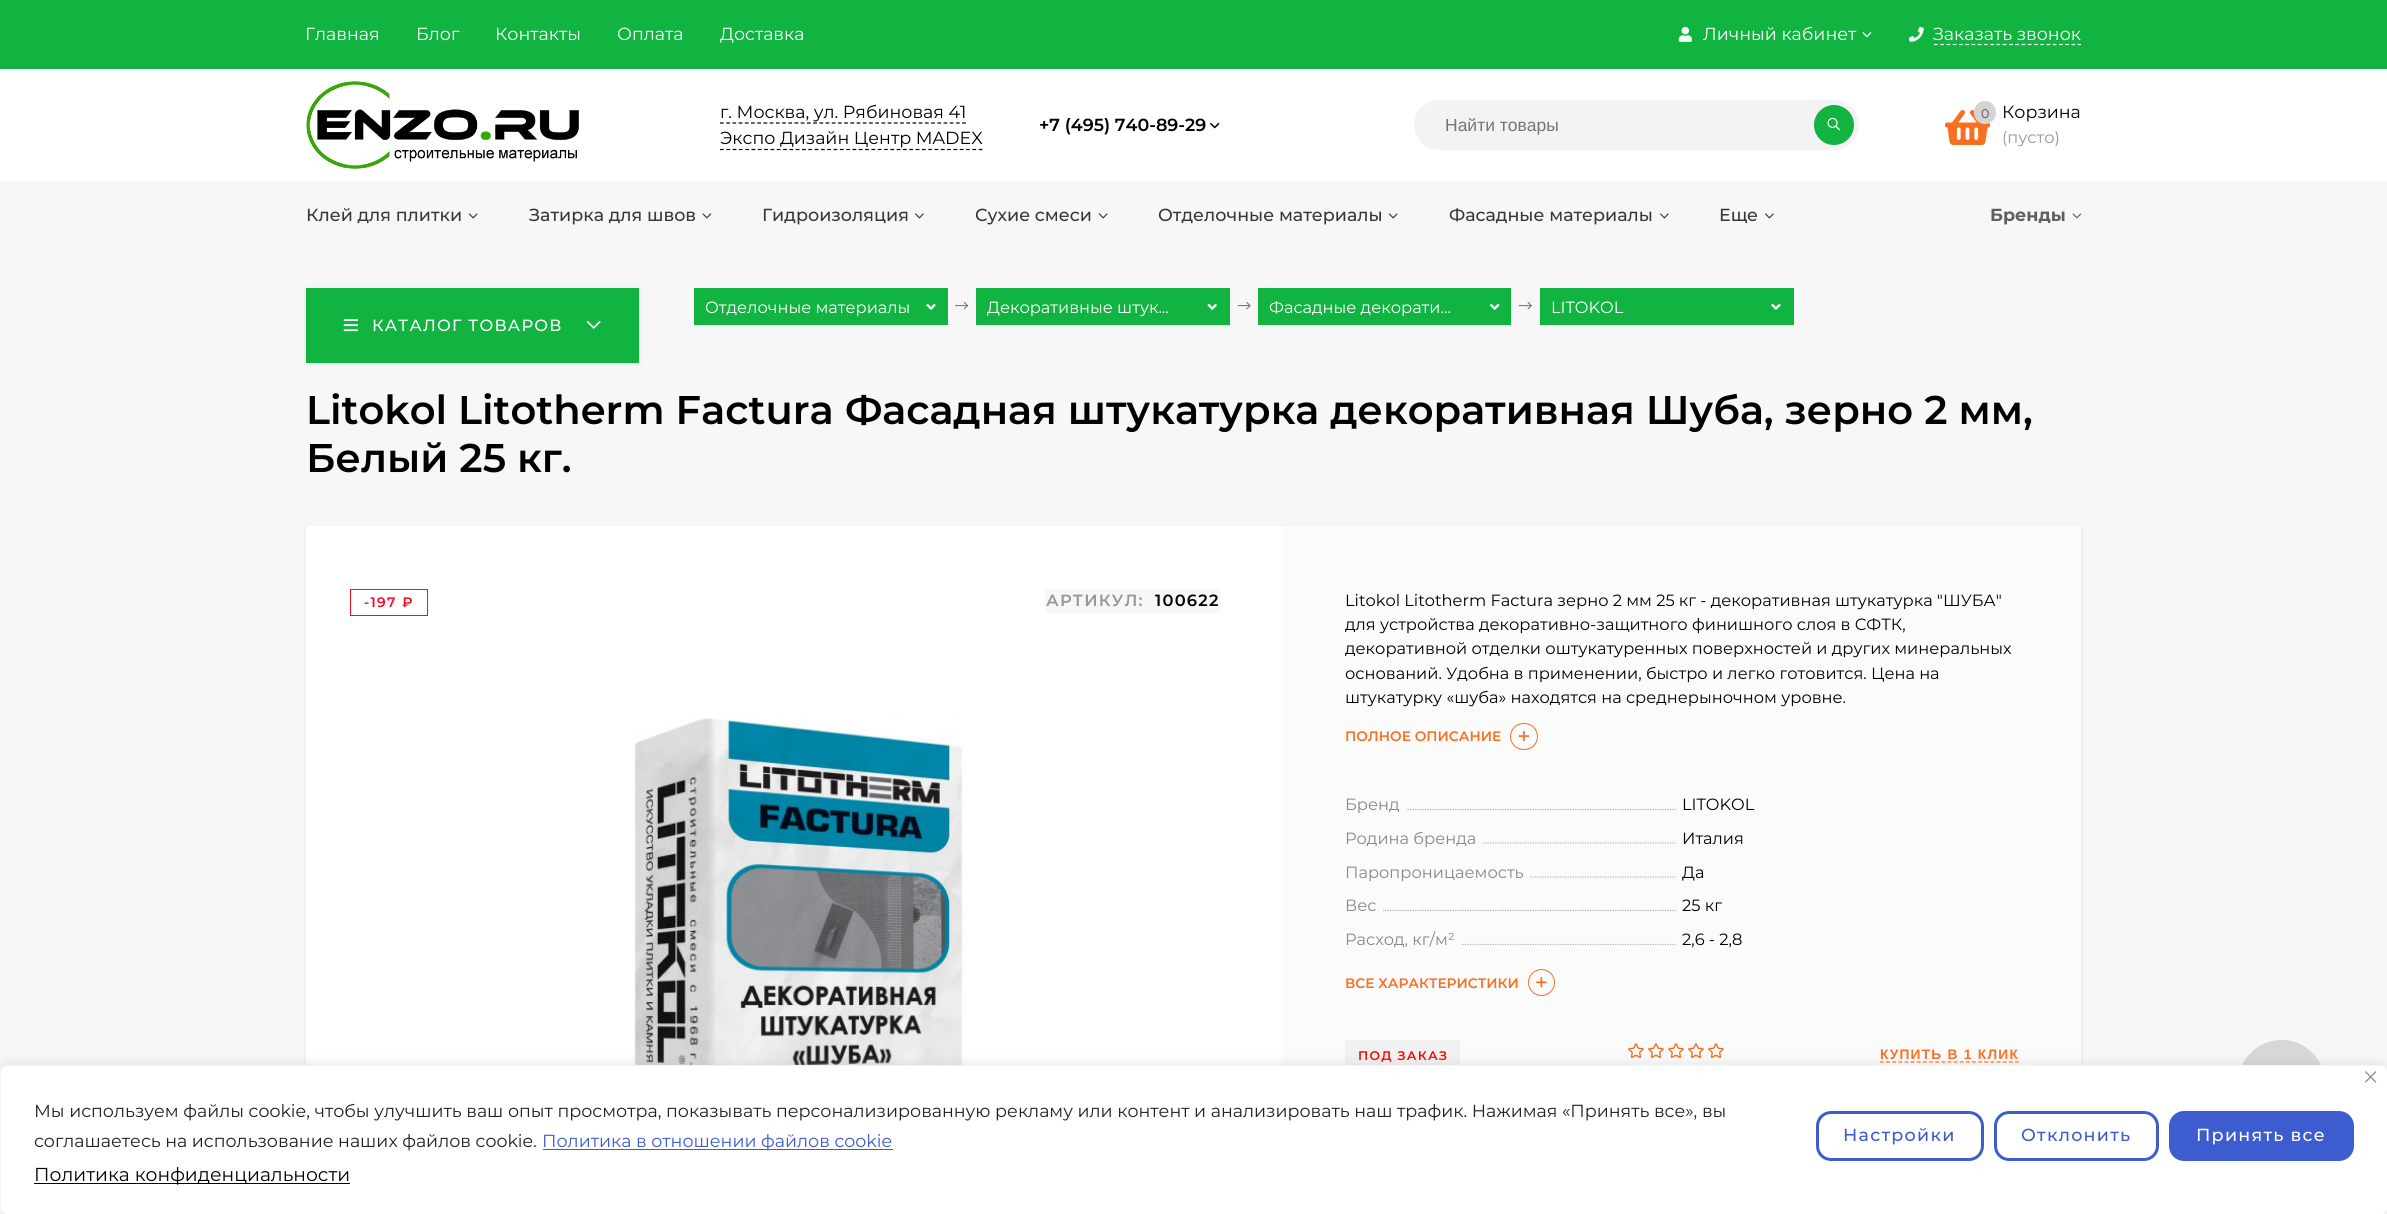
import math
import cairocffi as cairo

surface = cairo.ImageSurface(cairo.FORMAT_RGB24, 2387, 1214)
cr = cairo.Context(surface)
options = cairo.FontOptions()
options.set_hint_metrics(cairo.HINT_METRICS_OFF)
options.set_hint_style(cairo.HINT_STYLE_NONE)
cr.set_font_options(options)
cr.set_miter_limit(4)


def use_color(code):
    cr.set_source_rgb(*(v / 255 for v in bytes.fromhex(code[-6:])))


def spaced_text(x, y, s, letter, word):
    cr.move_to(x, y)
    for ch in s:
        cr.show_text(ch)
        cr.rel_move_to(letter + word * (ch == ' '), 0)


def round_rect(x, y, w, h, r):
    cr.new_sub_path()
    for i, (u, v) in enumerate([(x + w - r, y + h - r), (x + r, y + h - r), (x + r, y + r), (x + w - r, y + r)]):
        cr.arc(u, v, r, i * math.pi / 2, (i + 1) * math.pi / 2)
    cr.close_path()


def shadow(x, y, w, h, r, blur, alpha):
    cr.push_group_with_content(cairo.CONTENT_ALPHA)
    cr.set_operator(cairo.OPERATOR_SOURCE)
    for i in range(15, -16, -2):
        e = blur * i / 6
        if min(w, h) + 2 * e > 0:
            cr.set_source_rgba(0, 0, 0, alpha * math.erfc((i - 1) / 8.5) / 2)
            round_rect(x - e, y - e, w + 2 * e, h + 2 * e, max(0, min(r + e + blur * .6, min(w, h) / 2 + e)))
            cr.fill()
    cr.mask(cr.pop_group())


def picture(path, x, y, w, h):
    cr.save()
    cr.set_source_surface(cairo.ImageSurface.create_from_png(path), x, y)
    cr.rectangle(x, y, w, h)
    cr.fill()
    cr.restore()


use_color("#f7f7f7")
cr.paint()
use_color("#12b441")
cr.rectangle(0, 0, 2387, 69)
cr.fill()
cr.select_font_face("Montserrat")
cr.set_font_size(17.5)
use_color("#ffffff")
cr.move_to(305, 40)
cr.show_text("Главная")
cr.move_to(416, 40)
cr.show_text("Блог")
cr.move_to(495, 40)
cr.show_text("Контакты")
cr.move_to(617, 40)
cr.show_text("Оплата")
cr.move_to(720, 40)
cr.show_text("Доставка")
picture("img1.png", 1678, 26, 14, 16)
cr.move_to(1703, 40)
cr.show_text("Личный кабинет")
picture("img2.png", 1862, 32, 10, 6)
picture("img3.png", 1908, 26, 16, 16)
cr.new_path()
cr.move_to(1934, 44.5)
cr.line_to(2081, 44.5)
cr.set_line_width(1.2)
cr.set_dash([3.75, 2.5])
cr.stroke()
cr.move_to(1933, 40)
cr.show_text("Заказать звонок")
cr.rectangle(0, 69, 2387, 112)
cr.fill()
picture("img4.png", 306, 81, 273, 88)
use_color("#000000")
cr.move_to(720, 118)
cr.show_text("г. Москва, ул. Рябиновая 41")
cr.new_path()
cr.move_to(720, 123)
cr.line_to(966, 123)
cr.set_dash([3.75, 2.46])
cr.stroke()
cr.move_to(720, 144)
cr.show_text("Экспо Дизайн Центр MADEX")
cr.new_path()
cr.move_to(720, 149.5)
cr.line_to(982.5, 149.5)
cr.set_dash([3.75, 2.56])
cr.stroke()
cr.select_font_face("Montserrat SemiBold")
cr.move_to(1039, 131)
cr.show_text("+7 (495) 740-89-29")
picture("img5.png", 1210, 122, 10, 7)
use_color("#f3f3f3")
round_rect(1414, 100, 445, 50, 25)
cr.fill()
cr.select_font_face("Liberation Sans")
use_color("#757575")
cr.move_to(1445, 131)
cr.show_text("Найти товары")
use_color("#12b441")
cr.new_path()
cr.arc(1834, 125, 20, 0, 2 * math.pi)
cr.fill()
picture("img6.png", 1827, 117, 13, 14)
picture("img7.png", 1945, 110, 45, 35)
use_color("#d4d4d4")
round_rect(1974, 101, 22, 23, 11)
cr.fill()
cr.select_font_face("Montserrat")
cr.set_font_size(12.5)
use_color("#4a4a4a")
cr.move_to(1981, 118)
cr.show_text("0")
cr.set_font_size(17.5)
use_color("#000000")
cr.move_to(2002, 118)
cr.show_text("Корзина")
cr.set_font_size(16.25)
use_color("#969696")
cr.move_to(2002, 143)
cr.show_text("(пусто)")
cr.select_font_face("Montserrat Medium")
cr.set_font_size(17.5)
use_color("#363736")
cr.move_to(306, 221)
cr.show_text("Клей для плитки")
picture("img8.png", 468, 213, 10, 6)
cr.move_to(529, 221)
cr.show_text("Затирка для швов")
picture("img9.png", 702, 213, 10, 6)
cr.move_to(762, 221)
cr.show_text("Гидроизоляция")
picture("img10.png", 915, 213, 9, 6)
cr.move_to(975, 221)
cr.show_text("Сухие смеси")
picture("img8.png", 1098, 213, 10, 6)
cr.move_to(1158, 221)
cr.show_text("Отделочные материалы")
picture("img8.png", 1388, 213, 10, 6)
cr.move_to(1449, 221)
cr.show_text("Фасадные материалы")
picture("img10.png", 1660, 213, 9, 6)
cr.move_to(1719, 221)
cr.show_text("Еще")
picture("img10.png", 1765, 213, 9, 6)
cr.select_font_face("Montserrat", cairo.FONT_SLANT_NORMAL, cairo.FONT_WEIGHT_BOLD)
use_color("#5f5f5f")
cr.move_to(1990, 221)
cr.show_text("Бренды")
picture("img11.png", 2072, 213, 10, 6)
use_color("#12b441")
cr.rectangle(694, 288, 254, 37)
cr.fill()
cr.select_font_face("Montserrat")
cr.set_font_size(16.25)
use_color("#ffffff")
cr.move_to(705, 313)
cr.show_text("Отделочные материалы")
picture("img12.png", 926, 303, 10, 7)
picture("img13.png", 955, 301, 14, 9)
use_color("#12b441")
cr.rectangle(976, 288, 254, 37)
cr.fill()
use_color("#ffffff")
cr.move_to(987, 313)
cr.show_text("Декоративные штук...")
picture("img14.png", 1207, 303, 10, 7)
picture("img15.png", 1237, 301, 14, 9)
use_color("#12b441")
cr.rectangle(1258, 288, 253, 37)
cr.fill()
use_color("#ffffff")
cr.move_to(1269, 313)
cr.show_text("Фасадные декорати...")
picture("img16.png", 1490, 303, 10, 7)
picture("img17.png", 1518, 302, 14, 8)
use_color("#12b441")
cr.rectangle(1540, 288, 254, 37)
cr.fill()
use_color("#ffffff")
cr.move_to(1551, 313)
cr.show_text("LITOKOL")
picture("img12.png", 1771, 303, 10, 7)
use_color("#000000")
shadow(306, 289, 333, 75, 0, 2, 0.1)
use_color("#12b441")
cr.rectangle(306, 288, 333, 75)
cr.fill()
picture("img18.png", 343, 319, 15, 13)
cr.select_font_face("Montserrat Medium")
use_color("#ffffff")
spaced_text(372, 331, "КАТАЛОГ ТОВАРОВ", 1.25, 0)
picture("img19.png", 586, 320, 15, 9)
cr.select_font_face("Montserrat SemiBold")
cr.set_font_size(40)
use_color("#000000")
cr.move_to(306, 424)
cr.show_text("Litokol Litotherm Factura Фасадная штукатурка декоративная Шуба, зерно 2 мм,")
cr.move_to(306, 472)
cr.show_text("Белый 25 кг.")
use_color("#000000")
shadow(306, 528, 1775, 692, 0, 2, 0.1)
use_color("#ffffff")
cr.rectangle(306, 526, 977, 539)
cr.fill()
cr.rectangle(350.5, 589.5, 77, 26)
use_color("#ff0623")
cr.set_line_width(1)
cr.set_dash([])
cr.stroke()
cr.set_font_size(13.75)
spaced_text(364, 607, "-197", 1.25, 0)
spaced_text(402, 607, "₽", 1.25, 0)
use_color("#f7f7f7")
cr.rectangle(1045, 589, 175, 24)
cr.fill()
cr.set_font_size(16.25)
use_color("#969696")
spaced_text(1046, 606, "АРТИКУЛ:", 1.25, 0)
use_color("#000000")
spaced_text(1155, 606, "100622", 1.25, 0)
picture("img20.png", 632, 718, 334, 347)
use_color("#fbfbfb")
cr.rectangle(1283, 526, 798, 539)
cr.fill()
cr.select_font_face("Montserrat")
use_color("#000000")
cr.move_to(1345, 606)
cr.show_text("Litokol Litotherm Factura зерно 2 мм 25 кг - декоративная штукатурка \"ШУБА\"")
cr.move_to(1345, 630)
cr.show_text("для устройства декоративно-защитного финишного слоя в СФТК,")
cr.move_to(1345, 654)
cr.show_text("декоративной отделки оштукатуренных поверхностей и других минеральных")
cr.move_to(1345, 679)
cr.show_text("оснований. Удобна в применении, быстро и легко готовится. Цена на")
cr.move_to(1345, 703)
cr.show_text("штукатурку «шуба» находятся на среднерыночном уровне.")
cr.select_font_face("Montserrat SemiBold")
cr.set_font_size(13.75)
use_color("#f96f1f")
cr.move_to(1345, 741)
cr.show_text("ПОЛНОЕ ОПИСАНИЕ")
round_rect(1510.5, 723.5, 27, 26, 13)
cr.stroke()
picture("img21.png", 1518, 730, 12, 12)
cr.new_path()
cr.move_to(1345, 809.5)
cr.line_to(1676, 809.5)
use_color("#b5b5b5")
cr.set_line_width(1.2)
cr.set_dash([1.25, 1.25])
cr.stroke()
use_color("#fbfbfb")
cr.rectangle(1345, 808, 61, 3)
cr.fill()
cr.select_font_face("Montserrat")
cr.set_font_size(16.25)
use_color("#888888")
cr.move_to(1345, 810)
cr.show_text("Бренд")
use_color("#000000")
cr.move_to(1682, 810)
cr.show_text("LITOKOL")
cr.new_path()
cr.move_to(1345, 843)
cr.line_to(1676, 843)
use_color("#b5b5b5")
cr.stroke()
use_color("#fbfbfb")
cr.rectangle(1345, 842, 138, 2)
cr.fill()
use_color("#888888")
cr.move_to(1345, 844)
cr.show_text("Родина бренда")
use_color("#000000")
cr.move_to(1682, 844)
cr.show_text("Италия")
cr.new_path()
cr.move_to(1345, 877)
cr.line_to(1676, 877)
use_color("#b5b5b5")
cr.stroke()
use_color("#fbfbfb")
cr.rectangle(1345, 876, 184, 2)
cr.fill()
use_color("#888888")
cr.move_to(1345, 878)
cr.show_text("Паропроницаемость")
use_color("#000000")
cr.move_to(1682, 878)
cr.show_text("Да")
cr.new_path()
cr.move_to(1345, 910.5)
cr.line_to(1676, 910.5)
use_color("#b5b5b5")
cr.stroke()
use_color("#fbfbfb")
cr.rectangle(1345, 909, 38, 3)
cr.fill()
use_color("#888888")
cr.move_to(1345, 911)
cr.show_text("Вес")
use_color("#000000")
cr.move_to(1682, 911)
cr.show_text("25 кг")
cr.new_path()
cr.move_to(1345, 944.5)
cr.line_to(1676, 944.5)
use_color("#b5b5b5")
cr.stroke()
use_color("#fbfbfb")
cr.rectangle(1345, 943, 116, 3)
cr.fill()
use_color("#888888")
cr.move_to(1345, 945)
cr.show_text("Расход, кг/м²")
use_color("#000000")
cr.move_to(1682, 945)
cr.show_text("2,6 - 2,8")
cr.select_font_face("Montserrat SemiBold")
cr.set_font_size(13.75)
use_color("#f96f1f")
cr.move_to(1345, 988)
cr.show_text("ВСЕ ХАРАКТЕРИСТИКИ")
cr.new_path()
cr.arc(1541.5, 982.5, 13, 0, 2 * math.pi)
cr.set_line_width(1)
cr.set_dash([])
cr.stroke()
picture("img22.png", 1536, 977, 11, 11)
use_color("#f1f1f1")
cr.rectangle(1345, 1040, 115, 25)
cr.fill()
cr.set_font_size(12.5)
use_color("#ff0000")
spaced_text(1358, 1060, "ПОД ЗАКАЗ", 1.25, 0)
picture("img23.png", 1628, 1043, 16, 16)
picture("img23.png", 1648, 1043, 16, 16)
picture("img23.png", 1668, 1043, 16, 16)
picture("img23.png", 1688, 1043, 16, 16)
picture("img23.png", 1708, 1043, 16, 16)
cr.new_path()
cr.move_to(1880, 1062)
cr.line_to(2019, 1062)
use_color("#f96f1f")
cr.set_line_width(1.2)
cr.set_dash([3.75, 2.39])
cr.stroke()
cr.select_font_face("Liberation Sans", cairo.FONT_SLANT_NORMAL, cairo.FONT_WEIGHT_BOLD)
cr.set_font_size(13.75)
spaced_text(1880, 1059, "КУПИТЬ В 1 КЛИК", 1.25, 0)
use_color("#d6d7d6")
round_rect(2238, 1040, 87, 88, 43.5)
cr.fill()
use_color("#acabab")
shadow(0, 1064, 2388, 150, 8, 6, 0.3)
use_color("#ffffff")
round_rect(0.5, 1065.5, 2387, 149, 7.5)
cr.fill_preserve()
use_color("#f4f4f4")
cr.set_line_width(1)
cr.set_dash([])
cr.stroke()
picture("img24.png", 2365, 1071, 11, 12)
cr.select_font_face("Montserrat")
cr.set_font_size(17.5)
use_color("#212121")
cr.move_to(34, 1117)
cr.show_text("Мы используем файлы cookie, чтобы улучшить ваш опыт просмотра, показывать персонализированную рекламу или контент и анализировать наш трафик. Нажимая «Принять все», вы")
cr.move_to(34, 1147)
cr.show_text("соглашаетесь на использование наших файлов cookie.")
use_color("#3c5ccf")
cr.rectangle(543, 1149, 350, 1)
cr.fill()
cr.move_to(542, 1147)
cr.show_text("Политика в отношении файлов cookie")
round_rect(1817.5, 1112.5, 165, 47, 13.5)
cr.set_line_width(3)
cr.stroke()
cr.select_font_face("Montserrat Medium")
spaced_text(1843, 1141, "Настройки", 1.25, 0)
round_rect(1995.5, 1112.5, 162, 47, 13.5)
cr.stroke()
spaced_text(2021, 1141, "Отклонить", 1.25, 0)
round_rect(2170.5, 1112.5, 182, 47, 13.5)
cr.fill_preserve()
cr.stroke()
use_color("#ffffff")
spaced_text(2196, 1141, "Принять все", 1.25, 0)
use_color("#000000")
cr.rectangle(34, 1183, 316, 1)
cr.fill()
cr.select_font_face("Montserrat")
cr.set_font_size(18.75)
cr.move_to(34, 1181)
cr.show_text("Политика конфиденциальности")
surface.write_to_png("result.png")
